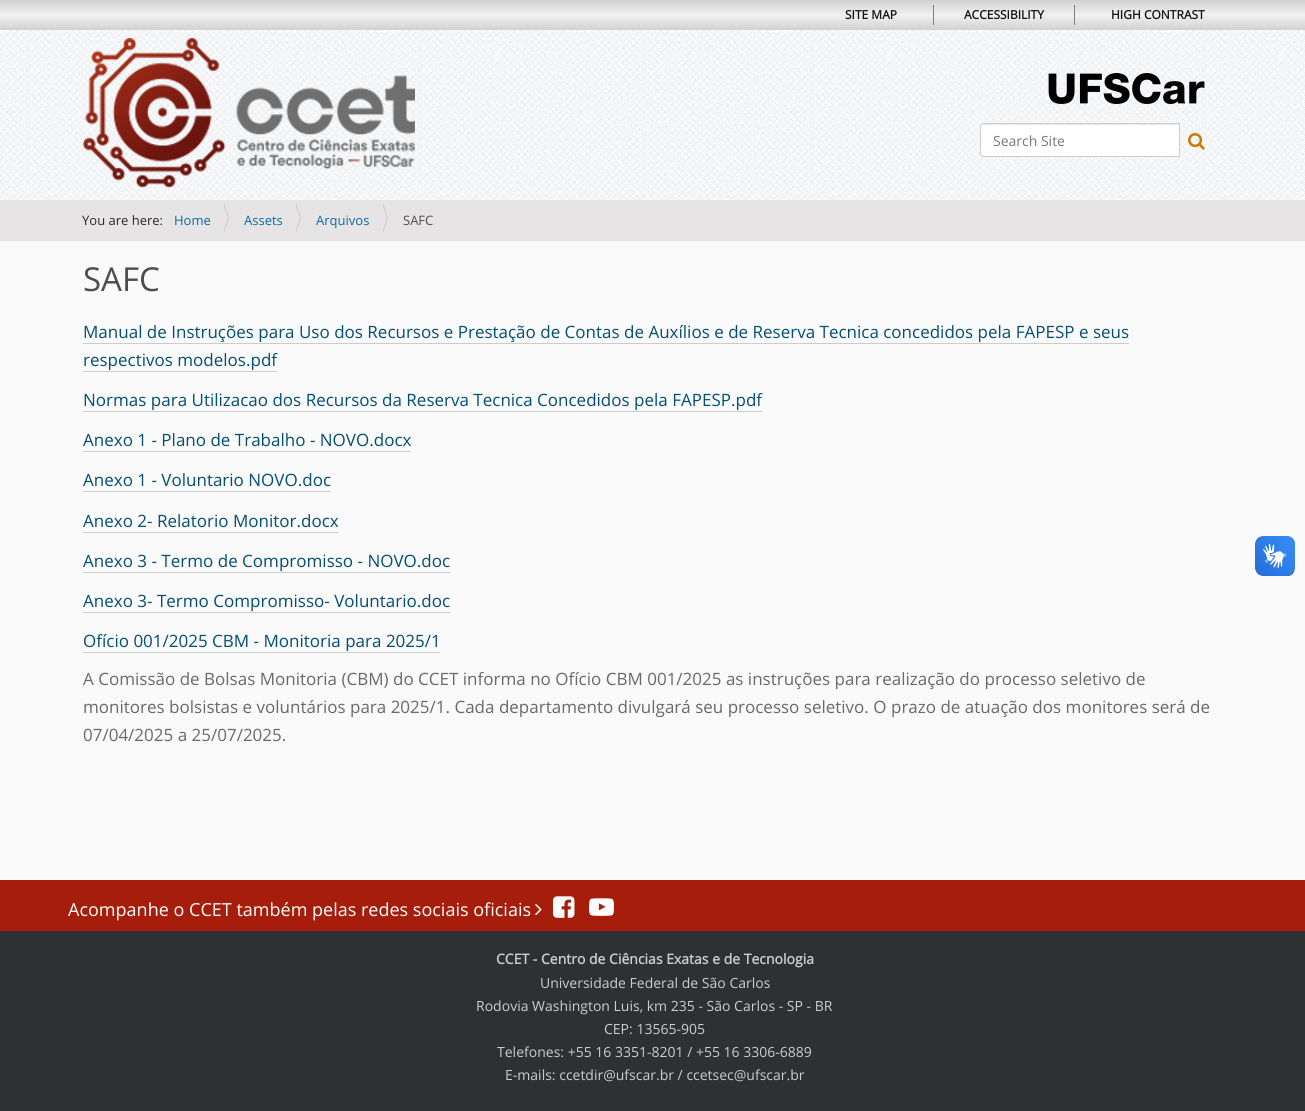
import math
import cairocffi as cairo

surface = cairo.ImageSurface(cairo.FORMAT_RGB24, 1305, 1111)
cr = cairo.Context(surface)
options = cairo.FontOptions()
options.set_hint_metrics(cairo.HINT_METRICS_OFF)
options.set_hint_style(cairo.HINT_STYLE_NONE)
cr.set_font_options(options)
cr.set_miter_limit(4)


def use_color(code):
    cr.set_source_rgb(*(v / 255 for v in bytes.fromhex(code[-6:])))


def picture(path, x, y, w, h):
    cr.save()
    cr.set_source_surface(cairo.ImageSurface.create_from_png(path), x, y)
    cr.rectangle(x, y, w, h)
    cr.fill()
    cr.restore()


use_color("#fafafa")
cr.paint()
picture("img1.png", 0, 30, 1305, 170)
gradient = cairo.LinearGradient(653, 0, 653, 30)
gradient.add_color_stop_rgba(0, 0.824, 0.82, 0.82, 1)
gradient.add_color_stop_rgba(0.25, 0.886, 0.882, 0.882, 1)
gradient.add_color_stop_rgba(0.5, 0.945, 0.945, 0.945, 1)
gradient.add_color_stop_rgba(0.75, 0.886, 0.882, 0.882, 1)
gradient.add_color_stop_rgba(1, 0.824, 0.82, 0.82, 1)
cr.set_source(gradient)
cr.rectangle(0, 0, 1305, 30)
cr.fill()
cr.select_font_face("Open Sans", cairo.FONT_SLANT_NORMAL, cairo.FONT_WEIGHT_BOLD)
cr.set_font_size(12)
use_color("#151515")
cr.move_to(845, 19)
cr.show_text("SITE MAP")
use_color("#808080")
cr.rectangle(1074, 5, 1, 20)
cr.fill()
cr.rectangle(933, 5, 1, 20)
cr.fill()
use_color("#151515")
cr.move_to(964, 19)
cr.show_text("ACCESSIBILITY")
cr.move_to(1111, 19)
cr.show_text("HIGH CONTRAST")
picture("img2.png", 1048, 73, 157, 31)
picture("img3.png", 83, 38, 332, 150)
use_color("#ffffff")
cr.new_path()
cr.move_to(984, 123)
cr.line_to(1180, 123)
cr.line_to(1180, 157)
cr.line_to(984, 157)
cr.curve_to(982, 157, 980, 155, 980, 153)
cr.line_to(980, 127)
cr.curve_to(980, 125, 982, 123, 984, 123)
cr.close_path()
cr.fill()
use_color("#ececec")
cr.new_path()
cr.move_to(984, 125)
cr.line_to(1179, 125)
cr.line_to(1179, 124)
cr.line_to(984, 124)
cr.curve_to(982, 124, 981, 126, 981, 128)
cr.curve_to(981, 126, 982, 125, 984, 125)
cr.close_path()
cr.fill()
cr.new_path()
cr.move_to(984, 123.5)
cr.line_to(1179.5, 123.5)
cr.line_to(1179.5, 156.5)
cr.line_to(984, 156.5)
cr.curve_to(982, 156.5, 980.5, 155, 980.5, 153)
cr.line_to(980.5, 127)
cr.curve_to(980.5, 125, 982, 123.5, 984, 123.5)
cr.close_path()
use_color("#cccccc")
cr.set_line_width(1)
cr.stroke()
cr.select_font_face("Open Sans")
cr.set_font_size(14)
use_color("#777777")
cr.move_to(993, 146)
cr.show_text("Search Site")
picture("img4.png", 1188, 133, 17, 17)
use_color("#e6e4e4")
cr.rectangle(0, 200, 1305, 41)
cr.fill()
cr.set_font_size(13)
use_color("#282828")
cr.move_to(82, 225)
cr.show_text("You are here:")
use_color("#086ca3")
cr.move_to(174, 225)
cr.show_text("Home")
use_color("#cccccc")
cr.new_path()
cr.move_to(224, 233)
cr.line_to(224, 203)
cr.line_to(229, 218)
cr.close_path()
cr.fill()
use_color("#e6e4e4")
cr.new_path()
cr.move_to(223, 233)
cr.line_to(223, 203)
cr.line_to(228, 218)
cr.close_path()
cr.fill()
use_color("#086ca3")
cr.move_to(244, 225)
cr.show_text("Assets")
use_color("#cccccc")
cr.new_path()
cr.move_to(296, 233)
cr.line_to(296, 203)
cr.line_to(301, 218)
cr.close_path()
cr.fill()
use_color("#e6e4e4")
cr.new_path()
cr.move_to(295, 233)
cr.line_to(295, 203)
cr.line_to(300, 218)
cr.close_path()
cr.fill()
use_color("#086ca3")
cr.move_to(316, 225)
cr.show_text("Arquivos")
use_color("#cccccc")
cr.new_path()
cr.move_to(383, 233)
cr.line_to(383, 203)
cr.line_to(388, 218)
cr.close_path()
cr.fill()
use_color("#e6e4e4")
cr.new_path()
cr.move_to(382, 233)
cr.line_to(382, 203)
cr.line_to(387, 218)
cr.close_path()
cr.fill()
use_color("#4d4d4d")
cr.move_to(403, 225)
cr.show_text("SAFC")
cr.set_font_size(33)
cr.move_to(83, 291)
cr.show_text("SAFC")
cr.set_font_size(17)
use_color("#044f71")
cr.move_to(83, 338)
cr.show_text("Manual de Instruções para Uso dos Recursos e Prestação de Contas de Auxílios e de Reserva Tecnica concedidos pela FAPESP e seus")
use_color("#cccccc")
cr.rectangle(83, 343, 1046, 1)
cr.fill()
use_color("#044f71")
cr.move_to(83, 366)
cr.show_text("respectivos modelos.pdf")
use_color("#cccccc")
cr.rectangle(83, 371, 194, 1)
cr.fill()
use_color("#044f71")
cr.move_to(83, 406)
cr.show_text("Normas para Utilizacao dos Recursos da Reserva Tecnica Concedidos pela FAPESP.pdf")
use_color("#cccccc")
cr.rectangle(83, 411, 679, 1)
cr.fill()
use_color("#044f71")
cr.move_to(83, 446)
cr.show_text("Anexo 1 - Plano de Trabalho - NOVO.docx")
use_color("#cccccc")
cr.rectangle(83, 451, 328, 1)
cr.fill()
use_color("#044f71")
cr.move_to(83, 486)
cr.show_text("Anexo 1 - Voluntario NOVO.doc")
use_color("#cccccc")
cr.rectangle(83, 491, 248, 1)
cr.fill()
use_color("#044f71")
cr.move_to(83, 527)
cr.show_text("Anexo 2- Relatorio Monitor.docx")
use_color("#cccccc")
cr.rectangle(83, 532, 255, 1)
cr.fill()
use_color("#044f71")
cr.move_to(83, 567)
cr.show_text("Anexo 3 - Termo de Compromisso - NOVO.doc")
use_color("#cccccc")
cr.rectangle(83, 572, 367, 1)
cr.fill()
use_color("#044f71")
cr.move_to(83, 607)
cr.show_text("Anexo 3- Termo Compromisso- Voluntario.doc")
use_color("#cccccc")
cr.rectangle(83, 612, 367, 1)
cr.fill()
use_color("#044f71")
cr.move_to(83, 647)
cr.show_text("Ofício 001/2025 CBM - Monitoria para 2025/1")
use_color("#cccccc")
cr.rectangle(83, 652, 357, 1)
cr.fill()
use_color("#696969")
cr.move_to(83, 685)
cr.show_text("A Comissão de Bolsas Monitoria (CBM) do CCET informa no Ofício CBM 001/2025 as instruções para realização do processo seletivo de")
cr.move_to(83, 713)
cr.show_text("monitores bolsistas e voluntários para 2025/1. Cada departamento divulgará seu processo seletivo. O prazo de atuação dos monitores será de")
cr.move_to(83, 741)
cr.show_text("07/04/2025 a 25/07/2025.")
picture("img5.png", 1255, 536, 40, 40)
picture("img6.png", 1255, 536, 40, 40)
use_color("#a61e0b")
cr.rectangle(0, 880, 1305, 51)
cr.fill()
cr.set_font_size(18)
use_color("#ffffff")
cr.move_to(68, 916)
cr.show_text("Acompanhe o CCET também pelas redes sociais oficiais")
picture("img7.png", 535, 904, 7, 12)
picture("img8.png", 553, 896, 22, 22)
picture("img9.png", 589, 898, 25, 18)
use_color("#2e3133")
cr.rectangle(0, 931, 1305, 180)
cr.fill()
cr.select_font_face("Open Sans", cairo.FONT_SLANT_NORMAL, cairo.FONT_WEIGHT_BOLD)
cr.set_font_size(14)
use_color("#cccccc")
cr.move_to(496, 964)
cr.show_text("CCET - Centro de Ciências Exatas e de Tecnologia")
cr.select_font_face("Open Sans")
cr.move_to(540, 988)
cr.show_text("Universidade Federal de São Carlos")
cr.move_to(476, 1011)
cr.show_text("Rodovia Washington Luis, km 235 - São Carlos - SP - BR")
cr.move_to(604, 1034)
cr.show_text("CEP: 13565-905")
cr.move_to(497, 1057)
cr.show_text("Telefones: +55 16 3351-8201 / +55 16 3306-6889")
cr.move_to(505, 1080)
cr.show_text("E-mails: ccetdir@ufscar.br / ccetsec@ufscar.br")
surface.write_to_png("result.png")
